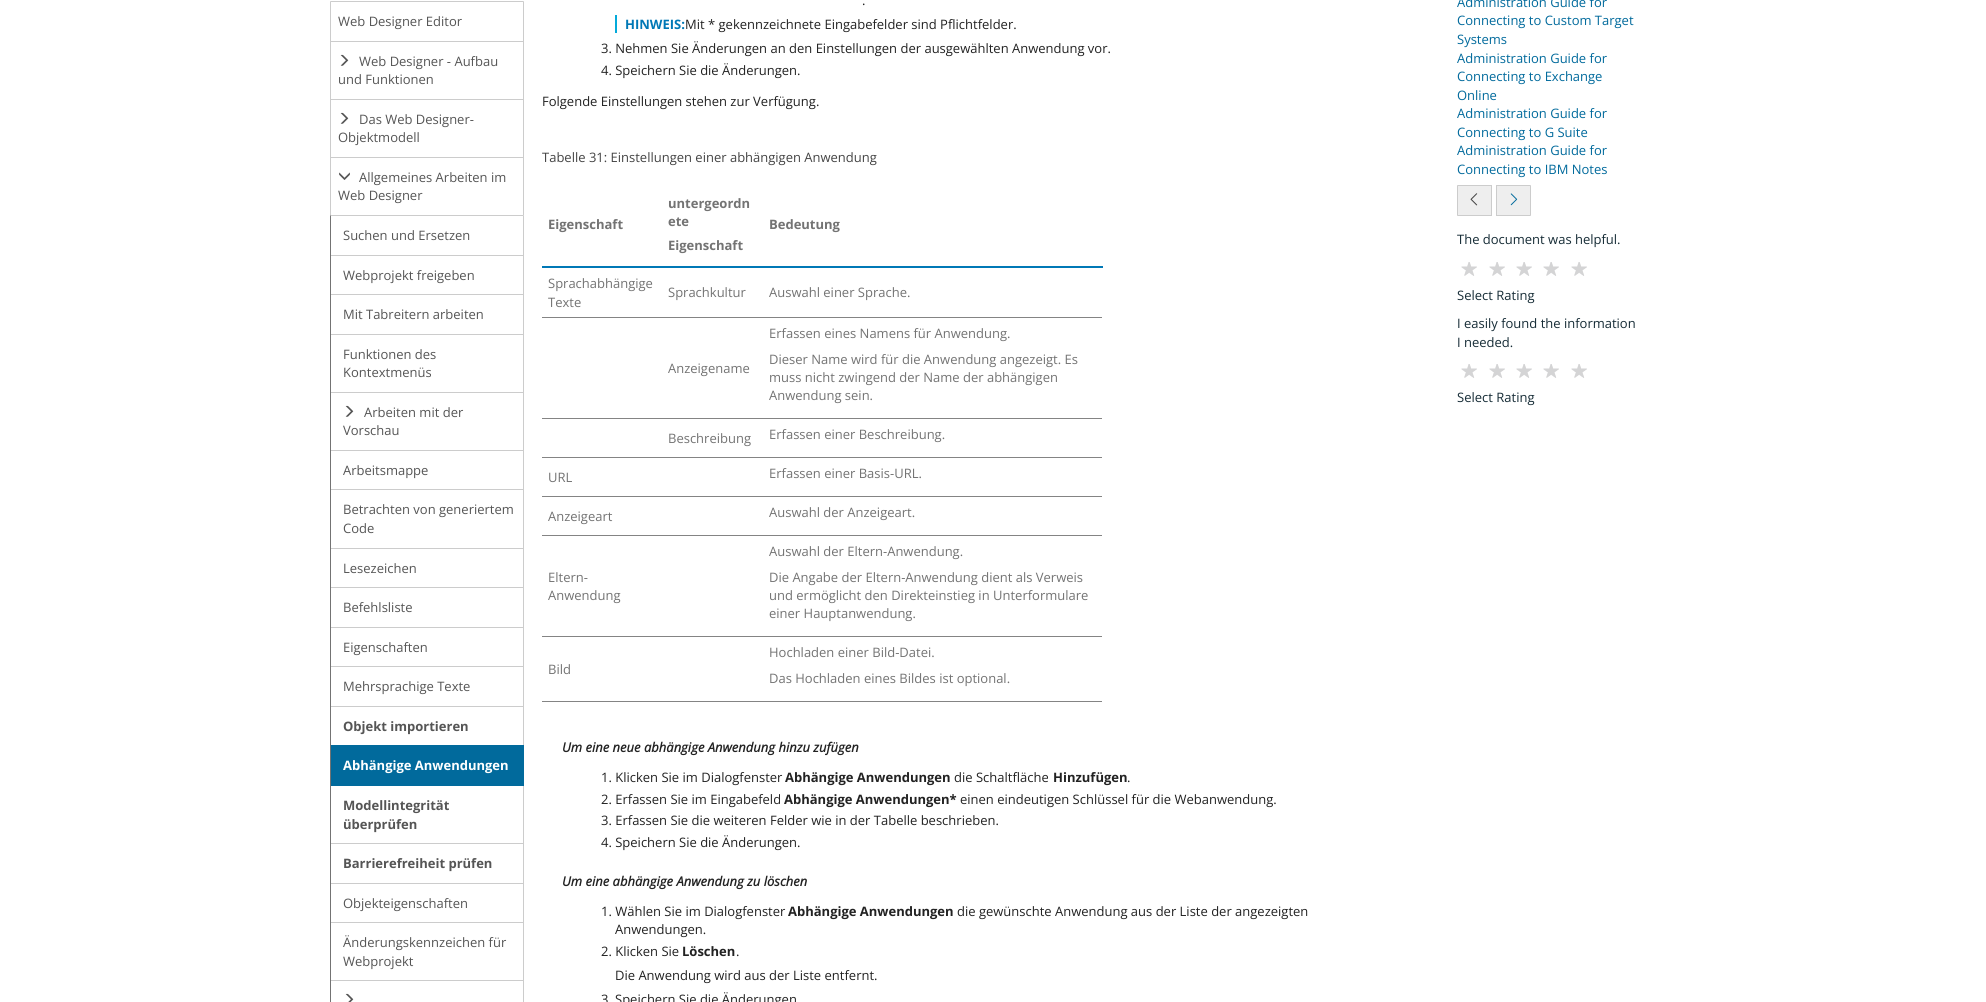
import math
import cairocffi as cairo

surface = cairo.ImageSurface(cairo.FORMAT_RGB24, 1986, 1002)
cr = cairo.Context(surface)
options = cairo.FontOptions()
options.set_hint_metrics(cairo.HINT_METRICS_OFF)
options.set_hint_style(cairo.HINT_STYLE_NONE)
cr.set_font_options(options)
cr.set_miter_limit(4)


def use_color(code):
    cr.set_source_rgb(*(v / 255 for v in bytes.fromhex(code[-6:])))


def picture(path, x, y, w, h):
    cr.save()
    cr.set_source_surface(cairo.ImageSurface.create_from_png(path), x, y)
    cr.rectangle(x, y, w, h)
    cr.fill()
    cr.restore()


use_color("#ffffff")
cr.paint()
cr.new_path()
cr.move_to(331, 1.5)
cr.line_to(523, 1.5)
cr.curve_to(523.5, 1.5, 523.5, 1.5, 523.5, 2)
cr.line_to(523.5, 41.5)
cr.line_to(330.5, 41.5)
cr.line_to(330.5, 2)
cr.curve_to(330.5, 1.5, 330.5, 1.5, 331, 1.5)
cr.close_path()
use_color("#cccccc")
cr.set_line_width(1)
cr.stroke()
cr.select_font_face("Open Sans")
cr.set_font_size(13)
use_color("#555555")
cr.move_to(338, 26)
cr.show_text("Web Designer Editor")
cr.rectangle(330.5, 41.5, 193, 58)
use_color("#cccccc")
cr.stroke()
picture("img1.png", 340, 54, 9, 12)
use_color("#555555")
cr.move_to(359, 66)
cr.show_text("Web Designer - Aufbau")
cr.move_to(338, 84)
cr.show_text("und Funktionen")
cr.rectangle(330.5, 99.5, 193, 58)
use_color("#cccccc")
cr.stroke()
picture("img1.png", 340, 112, 9, 12)
use_color("#555555")
cr.move_to(359, 124)
cr.show_text("Das Web Designer-")
cr.move_to(338, 142)
cr.show_text("Objektmodell")
cr.rectangle(330.5, 157.5, 193, 58)
use_color("#cccccc")
cr.stroke()
picture("img2.png", 339, 172, 11, 8)
use_color("#555555")
cr.move_to(359, 182)
cr.show_text("Allgemeines Arbeiten im")
cr.move_to(338, 200)
cr.show_text("Web Designer")
use_color("#ffffff")
cr.new_path()
cr.move_to(331, 215)
cr.line_to(523, 215)
cr.curve_to(523.5, 215, 524, 215.5, 524, 216)
cr.line_to(524, 256)
cr.line_to(330, 256)
cr.line_to(330, 216)
cr.curve_to(330, 215.5, 330.5, 215, 331, 215)
cr.close_path()
cr.fill()
use_color("#cccccc")
cr.new_path()
cr.move_to(331, 216)
cr.line_to(523, 216)
cr.line_to(524, 215)
cr.line_to(330, 215)
cr.close_path()
cr.fill()
cr.new_path()
cr.move_to(524, 256)
cr.line_to(524, 215)
cr.line_to(523, 216)
cr.line_to(523, 255)
cr.close_path()
cr.fill()
use_color("#737373")
cr.new_path()
cr.move_to(331, 216)
cr.line_to(330, 215)
cr.line_to(330, 256)
cr.line_to(331, 255)
cr.close_path()
cr.fill()
use_color("#555555")
cr.move_to(343, 240)
cr.show_text("Suchen und Ersetzen")
use_color("#cccccc")
cr.rectangle(330, 255, 194, 1)
cr.fill()
cr.rectangle(523, 255, 1, 40)
cr.fill()
use_color("#737373")
cr.rectangle(330, 255, 1, 40)
cr.fill()
use_color("#555555")
cr.move_to(343, 280)
cr.show_text("Webprojekt freigeben")
use_color("#cccccc")
cr.rectangle(330, 294, 194, 1)
cr.fill()
cr.rectangle(523, 294, 1, 41)
cr.fill()
use_color("#737373")
cr.rectangle(330, 294, 1, 41)
cr.fill()
use_color("#555555")
cr.move_to(343, 319)
cr.show_text("Mit Tabreitern arbeiten")
use_color("#cccccc")
cr.rectangle(330, 334, 194, 1)
cr.fill()
cr.rectangle(523, 334, 1, 59)
cr.fill()
use_color("#737373")
cr.rectangle(330, 334, 1, 59)
cr.fill()
use_color("#555555")
cr.move_to(343, 359)
cr.show_text("Funktionen des")
cr.move_to(343, 377)
cr.show_text("Kontextmenüs")
use_color("#cccccc")
cr.rectangle(330, 392, 194, 1)
cr.fill()
cr.rectangle(523, 392, 1, 59)
cr.fill()
use_color("#737373")
cr.rectangle(330, 392, 1, 59)
cr.fill()
picture("img1.png", 345, 405, 9, 12)
use_color("#555555")
cr.move_to(364, 417)
cr.show_text("Arbeiten mit der")
cr.move_to(343, 435)
cr.show_text("Vorschau")
use_color("#cccccc")
cr.rectangle(330, 450, 194, 1)
cr.fill()
cr.rectangle(523, 450, 1, 40)
cr.fill()
use_color("#737373")
cr.rectangle(330, 450, 1, 40)
cr.fill()
use_color("#555555")
cr.move_to(343, 475)
cr.show_text("Arbeitsmappe")
use_color("#cccccc")
cr.rectangle(330, 489, 194, 1)
cr.fill()
cr.rectangle(523, 489, 1, 60)
cr.fill()
use_color("#737373")
cr.rectangle(330, 489, 1, 60)
cr.fill()
use_color("#555555")
cr.move_to(343, 514)
cr.show_text("Betrachten von generiertem")
cr.move_to(343, 533)
cr.show_text("Code")
use_color("#cccccc")
cr.rectangle(330, 548, 194, 1)
cr.fill()
cr.rectangle(523, 548, 1, 40)
cr.fill()
use_color("#737373")
cr.rectangle(330, 548, 1, 40)
cr.fill()
use_color("#555555")
cr.move_to(343, 573)
cr.show_text("Lesezeichen")
use_color("#cccccc")
cr.rectangle(330, 587, 194, 1)
cr.fill()
cr.rectangle(523, 587, 1, 41)
cr.fill()
use_color("#737373")
cr.rectangle(330, 587, 1, 41)
cr.fill()
use_color("#555555")
cr.move_to(343, 612)
cr.show_text("Befehlsliste")
use_color("#cccccc")
cr.rectangle(330, 627, 194, 1)
cr.fill()
cr.rectangle(523, 627, 1, 40)
cr.fill()
use_color("#737373")
cr.rectangle(330, 627, 1, 40)
cr.fill()
use_color("#555555")
cr.move_to(343, 652)
cr.show_text("Eigenschaften")
use_color("#cccccc")
cr.rectangle(330, 666, 194, 1)
cr.fill()
cr.rectangle(523, 666, 1, 41)
cr.fill()
use_color("#737373")
cr.rectangle(330, 666, 1, 41)
cr.fill()
use_color("#555555")
cr.move_to(343, 691)
cr.show_text("Mehrsprachige Texte")
use_color("#cccccc")
cr.rectangle(330, 706, 194, 1)
cr.fill()
cr.rectangle(523, 706, 1, 40)
cr.fill()
use_color("#737373")
cr.rectangle(330, 706, 1, 40)
cr.fill()
cr.select_font_face("Open Sans", cairo.FONT_SLANT_NORMAL, cairo.FONT_WEIGHT_BOLD)
use_color("#555555")
cr.move_to(343, 731)
cr.show_text("Objekt importieren")
use_color("#cccccc")
cr.rectangle(523, 785, 1, 59)
cr.fill()
use_color("#016a9c")
cr.rectangle(331, 745, 193, 41)
cr.fill()
use_color("#ffffff")
cr.move_to(343, 770)
cr.show_text("Abhängige Anwendungen")
use_color("#737373")
cr.rectangle(330, 745, 1, 99)
cr.fill()
use_color("#555555")
cr.move_to(343, 810)
cr.show_text("Modellintegrität")
cr.move_to(343, 829)
cr.show_text("überprüfen")
use_color("#cccccc")
cr.rectangle(330, 843, 194, 1)
cr.fill()
cr.rectangle(523, 843, 1, 41)
cr.fill()
use_color("#737373")
cr.rectangle(330, 843, 1, 41)
cr.fill()
use_color("#555555")
cr.move_to(343, 868)
cr.show_text("Barrierefreiheit prüfen")
use_color("#cccccc")
cr.rectangle(330, 883, 194, 1)
cr.fill()
cr.rectangle(523, 883, 1, 40)
cr.fill()
use_color("#737373")
cr.rectangle(330, 883, 1, 40)
cr.fill()
cr.select_font_face("Open Sans")
use_color("#555555")
cr.move_to(343, 908)
cr.show_text("Objekteigenschaften")
use_color("#cccccc")
cr.rectangle(330, 922, 194, 1)
cr.fill()
cr.rectangle(523, 922, 1, 59)
cr.fill()
use_color("#737373")
cr.rectangle(330, 922, 1, 59)
cr.fill()
use_color("#555555")
cr.move_to(343, 947)
cr.show_text("Änderungskennzeichen für")
cr.move_to(343, 966)
cr.show_text("Webprojekt")
use_color("#cccccc")
cr.rectangle(330, 980, 194, 1)
cr.fill()
cr.rectangle(523, 980, 1, 22)
cr.fill()
use_color("#737373")
cr.rectangle(330, 980, 1, 22)
cr.fill()
picture("img3.png", 345, 993, 9, 9)
use_color("#222222")
cr.move_to(862, 5)
cr.show_text(".")
use_color("#04aada")
cr.rectangle(615, 15, 2, 18)
cr.fill()
cr.select_font_face("Open Sans", cairo.FONT_SLANT_NORMAL, cairo.FONT_WEIGHT_BOLD)
use_color("#0078b6")
cr.move_to(625, 29)
cr.show_text("HINWEIS:")
cr.select_font_face("Open Sans")
use_color("#222222")
cr.move_to(685, 29)
cr.show_text("Mit * gekennzeichnete Eingabefelder sind Pflichtfelder.")
cr.move_to(601, 53)
cr.show_text("3. Nehmen Sie Änderungen an den Einstellungen der ausgewählten Anwendung vor.")
cr.move_to(601, 75)
cr.show_text("4. Speichern Sie die Änderungen.")
cr.move_to(542, 106)
cr.show_text("Folgende Einstellungen stehen zur Verfügung.")
use_color("#444444")
cr.move_to(542, 162)
cr.show_text("Tabelle 31: Einstellungen einer abhängigen Anwendung")
cr.select_font_face("Open Sans", cairo.FONT_SLANT_NORMAL, cairo.FONT_WEIGHT_BOLD)
use_color("#737373")
cr.move_to(548, 229)
cr.show_text("Eigenschaft")
cr.move_to(668, 208)
cr.show_text("untergeordn")
cr.move_to(668, 226)
cr.show_text("ete")
cr.move_to(668, 250)
cr.show_text("Eigenschaft")
use_color("#0078b6")
cr.rectangle(542, 266, 561, 2)
cr.fill()
use_color("#737373")
cr.move_to(769, 229)
cr.show_text("Bedeutung")
cr.select_font_face("Open Sans")
cr.move_to(548, 288)
cr.show_text("Sprachabhängige")
cr.move_to(548, 307)
cr.show_text("Texte")
cr.move_to(668, 297)
cr.show_text("Sprachkultur")
use_color("#848484")
cr.rectangle(542, 317, 560, 1)
cr.fill()
use_color("#737373")
cr.move_to(769, 297)
cr.show_text("Auswahl einer Sprache.")
cr.move_to(668, 373)
cr.show_text("Anzeigename")
use_color("#848484")
cr.rectangle(542, 418, 560, 1)
cr.fill()
use_color("#737373")
cr.move_to(769, 338)
cr.show_text("Erfassen eines Namens für Anwendung.")
cr.move_to(769, 364)
cr.show_text("Dieser Name wird für die Anwendung angezeigt. Es")
cr.move_to(769, 382)
cr.show_text("muss nicht zwingend der Name der abhängigen")
cr.move_to(769, 400)
cr.show_text("Anwendung sein.")
cr.move_to(668, 443)
cr.show_text("Beschreibung")
use_color("#848484")
cr.rectangle(542, 457, 560, 1)
cr.fill()
use_color("#737373")
cr.move_to(769, 439)
cr.show_text("Erfassen einer Beschreibung.")
cr.move_to(548, 482)
cr.show_text("URL")
use_color("#848484")
cr.rectangle(542, 496, 560, 1)
cr.fill()
use_color("#737373")
cr.move_to(769, 478)
cr.show_text("Erfassen einer Basis-URL.")
cr.move_to(548, 521)
cr.show_text("Anzeigeart")
use_color("#848484")
cr.rectangle(542, 535, 560, 1)
cr.fill()
use_color("#737373")
cr.move_to(769, 517)
cr.show_text("Auswahl der Anzeigeart.")
cr.move_to(548, 582)
cr.show_text("Eltern-")
cr.move_to(548, 600)
cr.show_text("Anwendung")
use_color("#848484")
cr.rectangle(542, 636, 560, 1)
cr.fill()
use_color("#737373")
cr.move_to(769, 556)
cr.show_text("Auswahl der Eltern-Anwendung.")
cr.move_to(769, 582)
cr.show_text("Die Angabe der Eltern-Anwendung dient als Verweis")
cr.move_to(769, 600)
cr.show_text("und ermöglicht den Direkteinstieg in Unterformulare")
cr.move_to(769, 618)
cr.show_text("einer Hauptanwendung.")
cr.move_to(548, 674)
cr.show_text("Bild")
use_color("#848484")
cr.rectangle(542, 701, 560, 1)
cr.fill()
use_color("#737373")
cr.move_to(769, 657)
cr.show_text("Hochladen einer Bild-Datei.")
cr.move_to(769, 683)
cr.show_text("Das Hochladen eines Bildes ist optional.")
cr.select_font_face("Open Sans", cairo.FONT_SLANT_ITALIC, cairo.FONT_WEIGHT_BOLD)
use_color("#222222")
cr.move_to(562, 752)
cr.show_text("Um eine neue abhängige Anwendung hinzu zufügen")
cr.select_font_face("Open Sans")
cr.move_to(601, 782)
cr.show_text("1. Klicken Sie im Dialogfenster")
cr.select_font_face("Open Sans", cairo.FONT_SLANT_NORMAL, cairo.FONT_WEIGHT_BOLD)
cr.move_to(785, 782)
cr.show_text("Abhängige Anwendungen")
cr.select_font_face("Open Sans")
cr.move_to(954, 782)
cr.show_text("die Schaltfläche")
cr.select_font_face("Open Sans", cairo.FONT_SLANT_NORMAL, cairo.FONT_WEIGHT_BOLD)
cr.move_to(1053, 782)
cr.show_text("Hinzufügen")
cr.select_font_face("Open Sans")
cr.move_to(1127, 782)
cr.show_text(".")
cr.move_to(601, 804)
cr.show_text("2. Erfassen Sie im Eingabefeld")
cr.select_font_face("Open Sans", cairo.FONT_SLANT_NORMAL, cairo.FONT_WEIGHT_BOLD)
cr.move_to(784, 804)
cr.show_text("Abhängige Anwendungen*")
cr.select_font_face("Open Sans")
cr.move_to(960, 804)
cr.show_text("einen eindeutigen Schlüssel für die Webanwendung.")
cr.move_to(601, 825)
cr.show_text("3. Erfassen Sie die weiteren Felder wie in der Tabelle beschrieben.")
cr.move_to(601, 847)
cr.show_text("4. Speichern Sie die Änderungen.")
cr.select_font_face("Open Sans", cairo.FONT_SLANT_ITALIC, cairo.FONT_WEIGHT_BOLD)
cr.move_to(562, 886)
cr.show_text("Um eine abhängige Anwendung zu löschen")
cr.select_font_face("Open Sans")
cr.move_to(601, 916)
cr.show_text("1. Wählen Sie im Dialogfenster")
cr.select_font_face("Open Sans", cairo.FONT_SLANT_NORMAL, cairo.FONT_WEIGHT_BOLD)
cr.move_to(788, 916)
cr.show_text("Abhängige Anwendungen")
cr.select_font_face("Open Sans")
cr.move_to(957, 916)
cr.show_text("die gewünschte Anwendung aus der Liste der angezeigten")
cr.move_to(615, 934)
cr.show_text("Anwendungen.")
cr.move_to(601, 956)
cr.show_text("2. Klicken Sie")
cr.select_font_face("Open Sans", cairo.FONT_SLANT_NORMAL, cairo.FONT_WEIGHT_BOLD)
cr.move_to(682, 956)
cr.show_text("Löschen")
cr.select_font_face("Open Sans")
cr.move_to(736, 956)
cr.show_text(".")
cr.move_to(615, 980)
cr.show_text("Die Anwendung wird aus der Liste entfernt.")
cr.move_to(601, 1004)
cr.show_text("3")
cr.move_to(615, 1004)
cr.show_text("Speichern Sie die Änderungen")
use_color("#016a9c")
cr.move_to(1457, 7)
cr.show_text("Administration Guide for")
cr.move_to(1457, 25)
cr.show_text("Connecting to Custom Target")
cr.move_to(1457, 44)
cr.show_text("Systems")
cr.move_to(1457, 63)
cr.show_text("Administration Guide for")
cr.move_to(1457, 81)
cr.show_text("Connecting to Exchange")
cr.move_to(1457, 100)
cr.show_text("Online")
cr.move_to(1457, 118)
cr.show_text("Administration Guide for")
cr.move_to(1457, 137)
cr.show_text("Connecting to G Suite")
cr.move_to(1457, 155)
cr.show_text("Administration Guide for")
cr.move_to(1457, 174)
cr.show_text("Connecting to IBM Notes")
use_color("#eeeeee")
cr.new_path()
cr.move_to(1458, 185.5)
cr.line_to(1491.5, 185.5)
cr.line_to(1491.5, 215.5)
cr.line_to(1458, 215.5)
cr.curve_to(1457.5, 215.5, 1457.5, 215.5, 1457.5, 215)
cr.line_to(1457.5, 186)
cr.curve_to(1457.5, 185.5, 1457.5, 185.5, 1458, 185.5)
cr.close_path()
cr.fill_preserve()
use_color("#cccccc")
cr.stroke()
picture("img4.png", 1470, 193, 8, 13)
use_color("#eeeeee")
cr.new_path()
cr.move_to(1496.5, 185.5)
cr.line_to(1530, 185.5)
cr.curve_to(1530.5, 185.5, 1530.5, 185.5, 1530.5, 186)
cr.line_to(1530.5, 215)
cr.curve_to(1530.5, 215.5, 1530.5, 215.5, 1530, 215.5)
cr.line_to(1496.5, 215.5)
cr.close_path()
cr.fill_preserve()
use_color("#cccccc")
cr.stroke()
picture("img5.png", 1510, 193, 8, 13)
use_color("#162c36")
cr.move_to(1457, 244)
cr.show_text("The document was helpful.")
picture("img6.png", 1461, 262, 16, 14)
picture("img6.png", 1489, 262, 16, 14)
picture("img6.png", 1516, 262, 16, 14)
picture("img6.png", 1543, 262, 16, 14)
picture("img6.png", 1571, 262, 16, 14)
cr.move_to(1457, 300)
cr.show_text("Select Rating")
cr.move_to(1457, 328)
cr.show_text("I easily found the information")
cr.move_to(1457, 347)
cr.show_text("I needed.")
picture("img6.png", 1461, 364, 16, 14)
picture("img6.png", 1489, 364, 16, 14)
picture("img6.png", 1516, 364, 16, 14)
picture("img6.png", 1543, 364, 16, 14)
picture("img6.png", 1571, 364, 16, 14)
cr.move_to(1457, 402)
cr.show_text("Select Rating")
surface.write_to_png("result.png")
